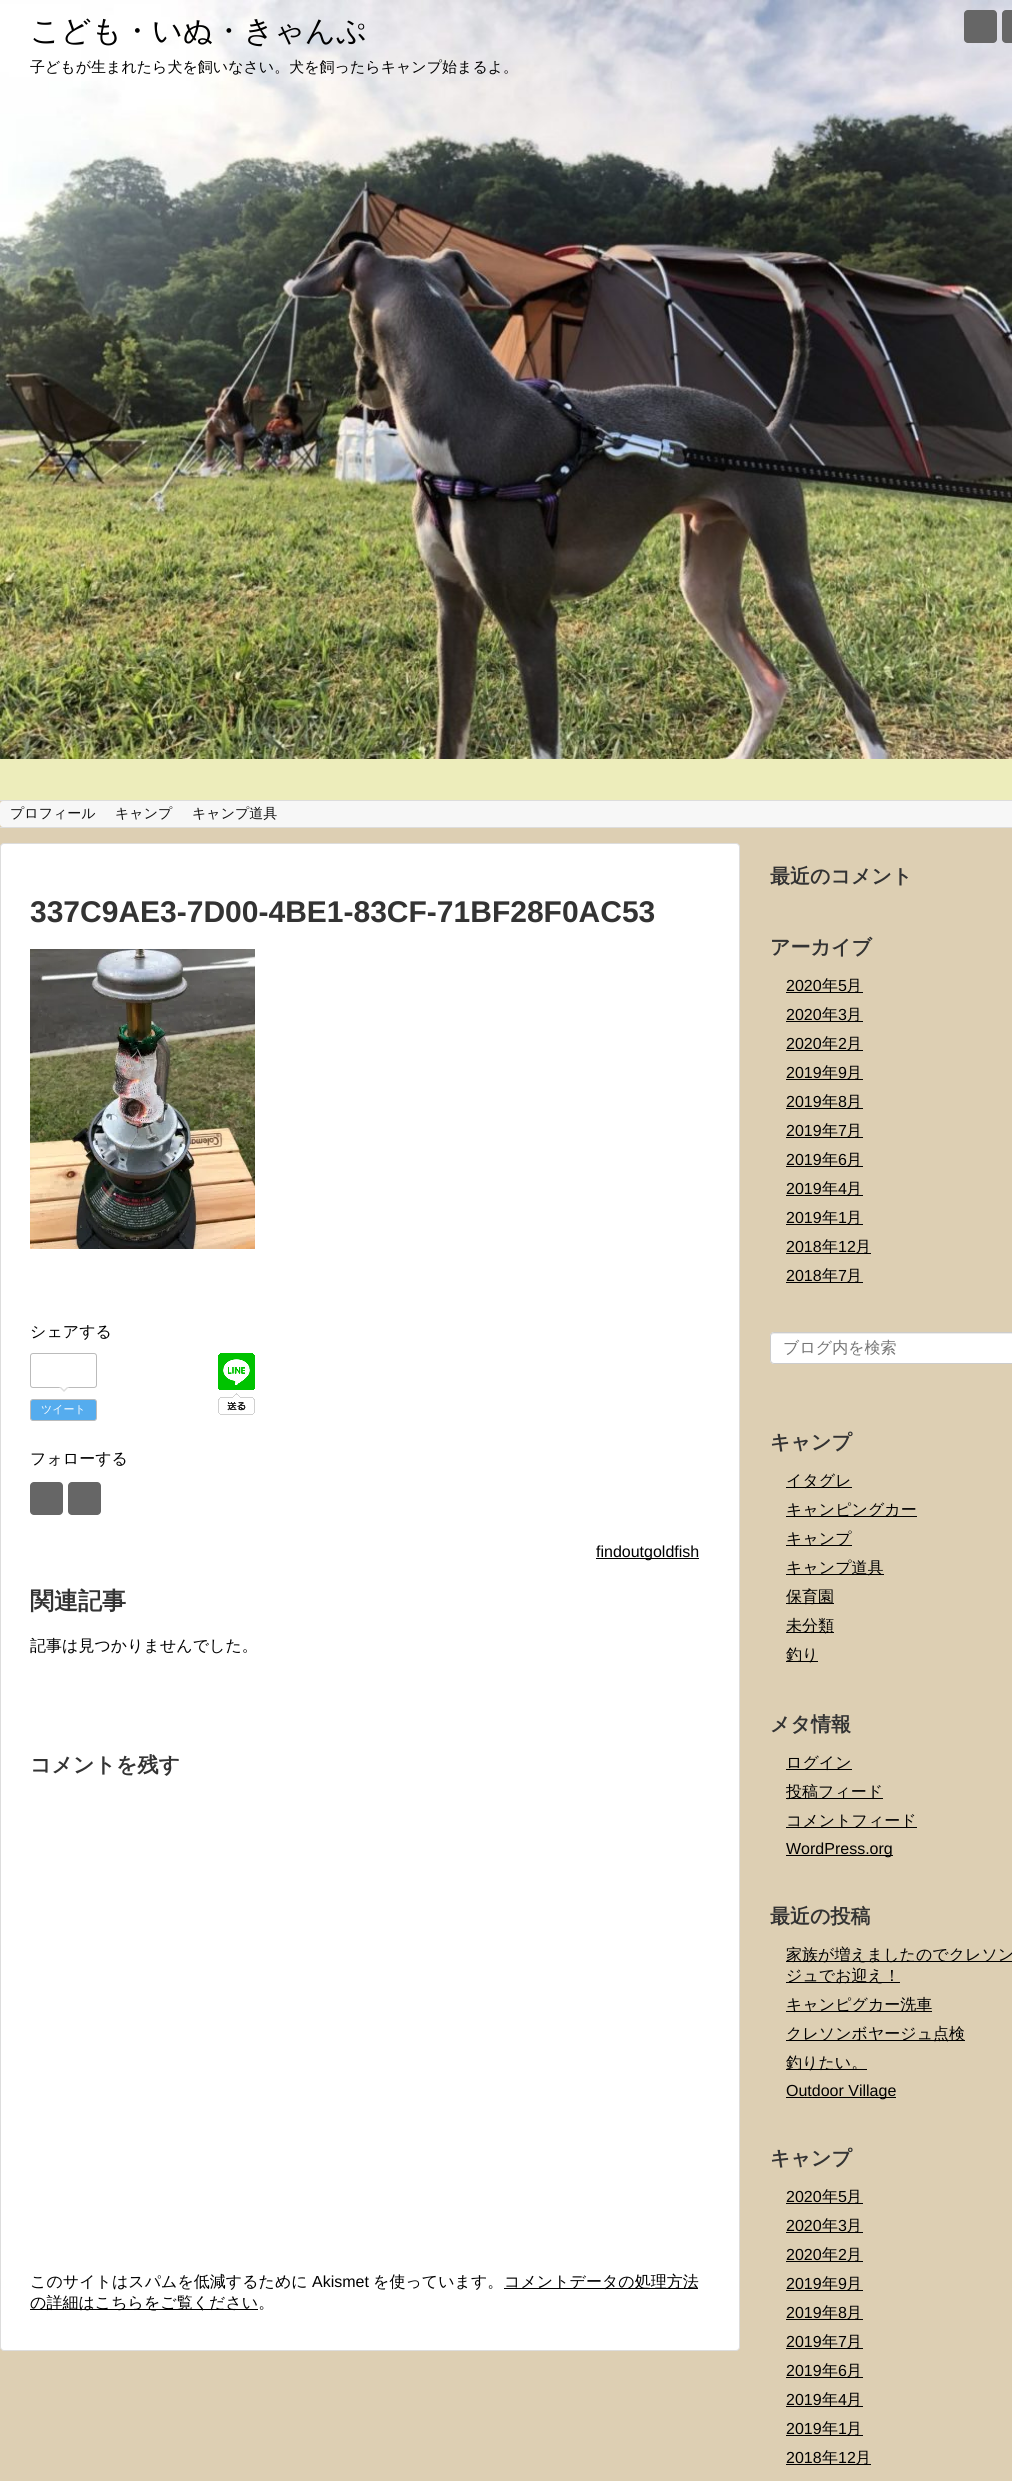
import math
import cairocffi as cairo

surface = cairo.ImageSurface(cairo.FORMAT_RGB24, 1012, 2481)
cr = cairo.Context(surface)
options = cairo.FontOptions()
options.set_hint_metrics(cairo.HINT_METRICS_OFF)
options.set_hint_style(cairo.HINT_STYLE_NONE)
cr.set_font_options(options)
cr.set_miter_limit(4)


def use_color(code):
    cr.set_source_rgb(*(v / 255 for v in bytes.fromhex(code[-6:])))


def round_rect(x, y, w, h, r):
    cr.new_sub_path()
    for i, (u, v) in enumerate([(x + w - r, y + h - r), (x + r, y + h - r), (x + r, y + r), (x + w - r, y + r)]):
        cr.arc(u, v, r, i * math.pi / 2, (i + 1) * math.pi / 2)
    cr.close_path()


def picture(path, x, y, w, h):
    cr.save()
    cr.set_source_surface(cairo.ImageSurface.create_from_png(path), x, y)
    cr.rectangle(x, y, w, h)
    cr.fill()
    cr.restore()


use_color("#ddcfb3")
cr.paint()
use_color("#ededbb")
cr.rectangle(0, 759, 1012, 41)
cr.fill()
picture("img1.png", 0, 0, 1012, 759)
cr.select_font_face("WenQuanYi Zen Hei Medium")
cr.set_font_size(30)
use_color("#000000")
cr.move_to(30, 41)
cr.show_text("こども・いぬ・きゃんぷ")
cr.set_font_size(15)
cr.move_to(30, 72)
cr.show_text("子どもが生まれたら犬を飼いなさい。犬を飼ったらキャンプ始まるよ。")
use_color("#666666")
round_rect(964, 10, 33, 33, 4)
cr.fill()
round_rect(1002, 10, 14, 33, 4)
cr.fill()
use_color("#dddddd")
cr.rectangle(0, 800, 1012, 1)
cr.fill()
cr.rectangle(0, 827, 1012, 1)
cr.fill()
use_color("#f7f7f7")
round_rect(0, 801, 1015, 26, 3)
cr.fill()
cr.set_font_size(14)
use_color("#111111")
cr.move_to(10, 818)
cr.show_text("プロフィール")
cr.move_to(115, 818)
cr.show_text("キャンプ")
cr.move_to(192, 818)
cr.show_text("キャンプ道具")
use_color("#ffffff")
round_rect(0.5, 843.5, 739, 1507, 3.5)
cr.fill_preserve()
use_color("#dddddd")
cr.set_line_width(1)
cr.stroke()
cr.select_font_face("Liberation Sans", cairo.FONT_SLANT_NORMAL, cairo.FONT_WEIGHT_BOLD)
cr.set_font_size(30)
use_color("#333333")
cr.move_to(30, 922)
cr.show_text("337C9AE3-7D00-4BE1-83CF-71BF28F0AC53")
picture("img2.png", 30, 949, 225, 300)
cr.select_font_face("WenQuanYi Zen Hei Medium")
cr.set_font_size(16)
use_color("#000000")
cr.move_to(30, 1337)
cr.show_text("シェアする")
round_rect(30.5, 1353.5, 66, 34, 2.5)
use_color("#bbbbbb")
cr.stroke()
use_color("#dddddd")
cr.new_path()
cr.move_to(59, 1387)
cr.line_to(69, 1387)
cr.line_to(64, 1392)
cr.close_path()
cr.fill()
use_color("#ffffff")
cr.new_path()
cr.move_to(61, 1387)
cr.line_to(67, 1387)
cr.line_to(64, 1390)
cr.close_path()
cr.fill()
use_color("#55acee")
round_rect(30.5, 1399.5, 66, 21, 2.5)
cr.fill_preserve()
use_color("#bbbbbb")
cr.stroke()
cr.set_font_size(11)
use_color("#ffffff")
cr.move_to(41, 1413)
cr.show_text("ツイート")
picture("img3.png", 218, 1353, 37, 62)
cr.set_font_size(16)
use_color("#000000")
cr.move_to(30, 1464)
cr.show_text("フォローする")
use_color("#666666")
round_rect(30, 1482, 33, 33, 4)
cr.fill()
round_rect(68, 1482, 33, 33, 4)
cr.fill()
use_color("#000000")
cr.rectangle(596, 1558, 103, 1)
cr.fill()
cr.select_font_face("Liberation Sans")
cr.move_to(596, 1557)
cr.show_text("findoutgoldfish")
cr.select_font_face("WenQuanYi Zen Hei", cairo.FONT_SLANT_NORMAL, cairo.FONT_WEIGHT_BOLD)
cr.set_font_size(24)
use_color("#333333")
cr.move_to(30, 1609)
cr.show_text("関連記事")
cr.select_font_face("WenQuanYi Zen Hei Medium")
cr.set_font_size(16)
use_color("#000000")
cr.move_to(30, 1651)
cr.show_text("記事は見つかりませんでした。")
cr.select_font_face("WenQuanYi Zen Hei", cairo.FONT_SLANT_NORMAL, cairo.FONT_WEIGHT_BOLD)
cr.set_font_size(21)
use_color("#333333")
cr.move_to(30, 1772)
cr.show_text("コメントを残す")
cr.select_font_face("WenQuanYi Zen Hei Medium")
cr.set_font_size(16)
use_color("#000000")
cr.move_to(30, 2287)
cr.show_text("このサイトはスパムを低減するために")
cr.select_font_face("Liberation Sans")
cr.move_to(312, 2287)
cr.show_text("Akismet")
cr.select_font_face("WenQuanYi Zen Hei Medium")
cr.move_to(373, 2287)
cr.show_text("を使っています。")
cr.rectangle(504, 2288, 194, 1)
cr.fill()
cr.move_to(504, 2287)
cr.show_text("コメントデータの処理方法")
cr.rectangle(30, 2309, 228, 1)
cr.fill()
cr.move_to(30, 2308)
cr.show_text("の詳細はこちらをご覧ください。")
cr.select_font_face("WenQuanYi Zen Hei", cairo.FONT_SLANT_NORMAL, cairo.FONT_WEIGHT_BOLD)
cr.set_font_size(20)
use_color("#333333")
cr.move_to(770, 883)
cr.show_text("最近のコメント")
cr.move_to(770, 954)
cr.show_text("アーカイブ")
cr.select_font_face("Liberation Sans")
cr.set_font_size(16)
use_color("#000000")
cr.move_to(786, 991)
cr.show_text("2020")
cr.rectangle(786, 992, 77, 1)
cr.fill()
cr.select_font_face("WenQuanYi Zen Hei Medium")
cr.move_to(822, 991)
cr.show_text("年")
cr.select_font_face("Liberation Sans")
cr.move_to(838, 991)
cr.show_text("5")
cr.select_font_face("WenQuanYi Zen Hei Medium")
cr.move_to(846, 991)
cr.show_text("月")
cr.select_font_face("Liberation Sans")
cr.move_to(786, 1020)
cr.show_text("2020")
cr.rectangle(786, 1021, 77, 1)
cr.fill()
cr.select_font_face("WenQuanYi Zen Hei Medium")
cr.move_to(822, 1020)
cr.show_text("年")
cr.select_font_face("Liberation Sans")
cr.move_to(838, 1020)
cr.show_text("3")
cr.select_font_face("WenQuanYi Zen Hei Medium")
cr.move_to(846, 1020)
cr.show_text("月")
cr.select_font_face("Liberation Sans")
cr.move_to(786, 1049)
cr.show_text("2020")
cr.rectangle(786, 1050, 77, 1)
cr.fill()
cr.select_font_face("WenQuanYi Zen Hei Medium")
cr.move_to(822, 1049)
cr.show_text("年")
cr.select_font_face("Liberation Sans")
cr.move_to(838, 1049)
cr.show_text("2")
cr.select_font_face("WenQuanYi Zen Hei Medium")
cr.move_to(846, 1049)
cr.show_text("月")
cr.select_font_face("Liberation Sans")
cr.move_to(786, 1078)
cr.show_text("2019")
cr.rectangle(786, 1079, 77, 1)
cr.fill()
cr.select_font_face("WenQuanYi Zen Hei Medium")
cr.move_to(822, 1078)
cr.show_text("年")
cr.select_font_face("Liberation Sans")
cr.move_to(838, 1078)
cr.show_text("9")
cr.select_font_face("WenQuanYi Zen Hei Medium")
cr.move_to(846, 1078)
cr.show_text("月")
cr.select_font_face("Liberation Sans")
cr.move_to(786, 1107)
cr.show_text("2019")
cr.rectangle(786, 1108, 77, 1)
cr.fill()
cr.select_font_face("WenQuanYi Zen Hei Medium")
cr.move_to(822, 1107)
cr.show_text("年")
cr.select_font_face("Liberation Sans")
cr.move_to(838, 1107)
cr.show_text("8")
cr.select_font_face("WenQuanYi Zen Hei Medium")
cr.move_to(846, 1107)
cr.show_text("月")
cr.select_font_face("Liberation Sans")
cr.move_to(786, 1136)
cr.show_text("2019")
cr.rectangle(786, 1137, 77, 1)
cr.fill()
cr.select_font_face("WenQuanYi Zen Hei Medium")
cr.move_to(822, 1136)
cr.show_text("年")
cr.select_font_face("Liberation Sans")
cr.move_to(838, 1136)
cr.show_text("7")
cr.select_font_face("WenQuanYi Zen Hei Medium")
cr.move_to(846, 1136)
cr.show_text("月")
cr.select_font_face("Liberation Sans")
cr.move_to(786, 1165)
cr.show_text("2019")
cr.rectangle(786, 1166, 77, 1)
cr.fill()
cr.select_font_face("WenQuanYi Zen Hei Medium")
cr.move_to(822, 1165)
cr.show_text("年")
cr.select_font_face("Liberation Sans")
cr.move_to(838, 1165)
cr.show_text("6")
cr.select_font_face("WenQuanYi Zen Hei Medium")
cr.move_to(846, 1165)
cr.show_text("月")
cr.select_font_face("Liberation Sans")
cr.move_to(786, 1194)
cr.show_text("2019")
cr.rectangle(786, 1195, 77, 1)
cr.fill()
cr.select_font_face("WenQuanYi Zen Hei Medium")
cr.move_to(822, 1194)
cr.show_text("年")
cr.select_font_face("Liberation Sans")
cr.move_to(838, 1194)
cr.show_text("4")
cr.select_font_face("WenQuanYi Zen Hei Medium")
cr.move_to(846, 1194)
cr.show_text("月")
cr.select_font_face("Liberation Sans")
cr.move_to(786, 1223)
cr.show_text("2019")
cr.rectangle(786, 1224, 77, 1)
cr.fill()
cr.select_font_face("WenQuanYi Zen Hei Medium")
cr.move_to(822, 1223)
cr.show_text("年")
cr.select_font_face("Liberation Sans")
cr.move_to(838, 1223)
cr.show_text("1")
cr.select_font_face("WenQuanYi Zen Hei Medium")
cr.move_to(846, 1223)
cr.show_text("月")
cr.select_font_face("Liberation Sans")
cr.move_to(786, 1252)
cr.show_text("2018")
cr.rectangle(786, 1253, 85, 1)
cr.fill()
cr.select_font_face("WenQuanYi Zen Hei Medium")
cr.move_to(822, 1252)
cr.show_text("年")
cr.select_font_face("Liberation Sans")
cr.move_to(838, 1252)
cr.show_text("12")
cr.select_font_face("WenQuanYi Zen Hei Medium")
cr.move_to(855, 1252)
cr.show_text("月")
cr.select_font_face("Liberation Sans")
cr.move_to(786, 1281)
cr.show_text("2018")
cr.rectangle(786, 1282, 77, 1)
cr.fill()
cr.select_font_face("WenQuanYi Zen Hei Medium")
cr.move_to(822, 1281)
cr.show_text("年")
cr.select_font_face("Liberation Sans")
cr.move_to(838, 1281)
cr.show_text("7")
cr.select_font_face("WenQuanYi Zen Hei Medium")
cr.move_to(846, 1281)
cr.show_text("月")
use_color("#ffffff")
round_rect(770, 1332, 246, 32, 4)
cr.fill()
use_color("#ececec")
cr.new_path()
cr.move_to(774, 1334)
cr.line_to(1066, 1334)
cr.curve_to(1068, 1334, 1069, 1335, 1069, 1337)
cr.line_to(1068, 1334)
cr.line_to(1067, 1333)
cr.line_to(774, 1333)
cr.curve_to(772, 1333, 771, 1335, 771, 1337)
cr.curve_to(771, 1335, 772, 1334, 774, 1334)
cr.close_path()
cr.fill()
round_rect(770.5, 1332.5, 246, 31, 3.5)
use_color("#cccccc")
cr.stroke()
use_color("#757575")
cr.move_to(783, 1353)
cr.show_text("ブログ内を検索")
cr.select_font_face("WenQuanYi Zen Hei", cairo.FONT_SLANT_NORMAL, cairo.FONT_WEIGHT_BOLD)
cr.set_font_size(20)
use_color("#333333")
cr.move_to(770, 1449)
cr.show_text("キャンプ")
use_color("#000000")
cr.rectangle(786, 1487, 66, 1)
cr.fill()
cr.select_font_face("WenQuanYi Zen Hei Medium")
cr.set_font_size(16)
cr.move_to(786, 1486)
cr.show_text("イタグレ")
cr.rectangle(786, 1516, 131, 1)
cr.fill()
cr.move_to(786, 1515)
cr.show_text("キャンピングカー")
cr.rectangle(786, 1545, 66, 1)
cr.fill()
cr.move_to(786, 1544)
cr.show_text("キャンプ")
cr.rectangle(786, 1574, 98, 1)
cr.fill()
cr.move_to(786, 1573)
cr.show_text("キャンプ道具")
cr.rectangle(786, 1603, 48, 1)
cr.fill()
cr.move_to(786, 1602)
cr.show_text("保育園")
cr.rectangle(786, 1632, 48, 1)
cr.fill()
cr.move_to(786, 1631)
cr.show_text("未分類")
cr.rectangle(786, 1661, 32, 1)
cr.fill()
cr.move_to(786, 1660)
cr.show_text("釣り")
cr.select_font_face("WenQuanYi Zen Hei", cairo.FONT_SLANT_NORMAL, cairo.FONT_WEIGHT_BOLD)
cr.set_font_size(20)
use_color("#333333")
cr.move_to(770, 1731)
cr.show_text("メタ情報")
use_color("#000000")
cr.rectangle(786, 1769, 66, 1)
cr.fill()
cr.select_font_face("WenQuanYi Zen Hei Medium")
cr.set_font_size(16)
cr.move_to(786, 1768)
cr.show_text("ログイン")
cr.rectangle(786, 1798, 97, 1)
cr.fill()
cr.move_to(786, 1797)
cr.show_text("投稿フィード")
cr.rectangle(786, 1827, 131, 1)
cr.fill()
cr.move_to(786, 1826)
cr.show_text("コメントフィード")
cr.rectangle(786, 1855, 107, 1)
cr.fill()
cr.select_font_face("Liberation Sans")
cr.move_to(786, 1854)
cr.show_text("WordPress.org")
cr.select_font_face("WenQuanYi Zen Hei", cairo.FONT_SLANT_NORMAL, cairo.FONT_WEIGHT_BOLD)
cr.set_font_size(20)
use_color("#333333")
cr.move_to(770, 1923)
cr.show_text("最近の投稿")
use_color("#000000")
cr.rectangle(786, 1961, 226, 1)
cr.fill()
cr.select_font_face("WenQuanYi Zen Hei Medium")
cr.set_font_size(16)
cr.move_to(786, 1960)
cr.show_text("家族が増えましたのでクレソン")
cr.rectangle(786, 1982, 114, 1)
cr.fill()
cr.move_to(786, 1981)
cr.show_text("ジュでお迎え！")
cr.rectangle(786, 2011, 146, 1)
cr.fill()
cr.move_to(786, 2010)
cr.show_text("キャンピグカー洗車")
cr.rectangle(786, 2040, 179, 1)
cr.fill()
cr.move_to(786, 2039)
cr.show_text("クレソンボヤージュ点検")
cr.rectangle(786, 2069, 81, 1)
cr.fill()
cr.move_to(786, 2068)
cr.show_text("釣りたい。")
cr.rectangle(786, 2097, 110, 1)
cr.fill()
cr.select_font_face("Liberation Sans")
cr.move_to(786, 2096)
cr.show_text("Outdoor Village")
cr.select_font_face("WenQuanYi Zen Hei", cairo.FONT_SLANT_NORMAL, cairo.FONT_WEIGHT_BOLD)
cr.set_font_size(20)
use_color("#333333")
cr.move_to(770, 2165)
cr.show_text("キャンプ")
cr.select_font_face("Liberation Sans")
cr.set_font_size(16)
use_color("#000000")
cr.move_to(786, 2202)
cr.show_text("2020")
cr.rectangle(786, 2203, 77, 1)
cr.fill()
cr.select_font_face("WenQuanYi Zen Hei Medium")
cr.move_to(822, 2202)
cr.show_text("年")
cr.select_font_face("Liberation Sans")
cr.move_to(838, 2202)
cr.show_text("5")
cr.select_font_face("WenQuanYi Zen Hei Medium")
cr.move_to(846, 2202)
cr.show_text("月")
cr.select_font_face("Liberation Sans")
cr.move_to(786, 2231)
cr.show_text("2020")
cr.rectangle(786, 2232, 77, 1)
cr.fill()
cr.select_font_face("WenQuanYi Zen Hei Medium")
cr.move_to(822, 2231)
cr.show_text("年")
cr.select_font_face("Liberation Sans")
cr.move_to(838, 2231)
cr.show_text("3")
cr.select_font_face("WenQuanYi Zen Hei Medium")
cr.move_to(846, 2231)
cr.show_text("月")
cr.select_font_face("Liberation Sans")
cr.move_to(786, 2260)
cr.show_text("2020")
cr.rectangle(786, 2261, 77, 1)
cr.fill()
cr.select_font_face("WenQuanYi Zen Hei Medium")
cr.move_to(822, 2260)
cr.show_text("年")
cr.select_font_face("Liberation Sans")
cr.move_to(838, 2260)
cr.show_text("2")
cr.select_font_face("WenQuanYi Zen Hei Medium")
cr.move_to(846, 2260)
cr.show_text("月")
cr.select_font_face("Liberation Sans")
cr.move_to(786, 2289)
cr.show_text("2019")
cr.rectangle(786, 2290, 77, 1)
cr.fill()
cr.select_font_face("WenQuanYi Zen Hei Medium")
cr.move_to(822, 2289)
cr.show_text("年")
cr.select_font_face("Liberation Sans")
cr.move_to(838, 2289)
cr.show_text("9")
cr.select_font_face("WenQuanYi Zen Hei Medium")
cr.move_to(846, 2289)
cr.show_text("月")
cr.select_font_face("Liberation Sans")
cr.move_to(786, 2318)
cr.show_text("2019")
cr.rectangle(786, 2319, 77, 1)
cr.fill()
cr.select_font_face("WenQuanYi Zen Hei Medium")
cr.move_to(822, 2318)
cr.show_text("年")
cr.select_font_face("Liberation Sans")
cr.move_to(838, 2318)
cr.show_text("8")
cr.select_font_face("WenQuanYi Zen Hei Medium")
cr.move_to(846, 2318)
cr.show_text("月")
cr.select_font_face("Liberation Sans")
cr.move_to(786, 2347)
cr.show_text("2019")
cr.rectangle(786, 2348, 77, 1)
cr.fill()
cr.select_font_face("WenQuanYi Zen Hei Medium")
cr.move_to(822, 2347)
cr.show_text("年")
cr.select_font_face("Liberation Sans")
cr.move_to(838, 2347)
cr.show_text("7")
cr.select_font_face("WenQuanYi Zen Hei Medium")
cr.move_to(846, 2347)
cr.show_text("月")
cr.select_font_face("Liberation Sans")
cr.move_to(786, 2376)
cr.show_text("2019")
cr.rectangle(786, 2377, 77, 1)
cr.fill()
cr.select_font_face("WenQuanYi Zen Hei Medium")
cr.move_to(822, 2376)
cr.show_text("年")
cr.select_font_face("Liberation Sans")
cr.move_to(838, 2376)
cr.show_text("6")
cr.select_font_face("WenQuanYi Zen Hei Medium")
cr.move_to(846, 2376)
cr.show_text("月")
cr.select_font_face("Liberation Sans")
cr.move_to(786, 2405)
cr.show_text("2019")
cr.rectangle(786, 2406, 77, 1)
cr.fill()
cr.select_font_face("WenQuanYi Zen Hei Medium")
cr.move_to(822, 2405)
cr.show_text("年")
cr.select_font_face("Liberation Sans")
cr.move_to(838, 2405)
cr.show_text("4")
cr.select_font_face("WenQuanYi Zen Hei Medium")
cr.move_to(846, 2405)
cr.show_text("月")
cr.select_font_face("Liberation Sans")
cr.move_to(786, 2434)
cr.show_text("2019")
cr.rectangle(786, 2435, 77, 1)
cr.fill()
cr.select_font_face("WenQuanYi Zen Hei Medium")
cr.move_to(822, 2434)
cr.show_text("年")
cr.select_font_face("Liberation Sans")
cr.move_to(838, 2434)
cr.show_text("1")
cr.select_font_face("WenQuanYi Zen Hei Medium")
cr.move_to(846, 2434)
cr.show_text("月")
cr.select_font_face("Liberation Sans")
cr.move_to(786, 2463)
cr.show_text("2018")
cr.rectangle(786, 2464, 85, 1)
cr.fill()
cr.select_font_face("WenQuanYi Zen Hei Medium")
cr.move_to(822, 2463)
cr.show_text("年")
cr.select_font_face("Liberation Sans")
cr.move_to(838, 2463)
cr.show_text("12")
cr.select_font_face("WenQuanYi Zen Hei Medium")
cr.move_to(855, 2463)
cr.show_text("月")
surface.write_to_png("result.png")
